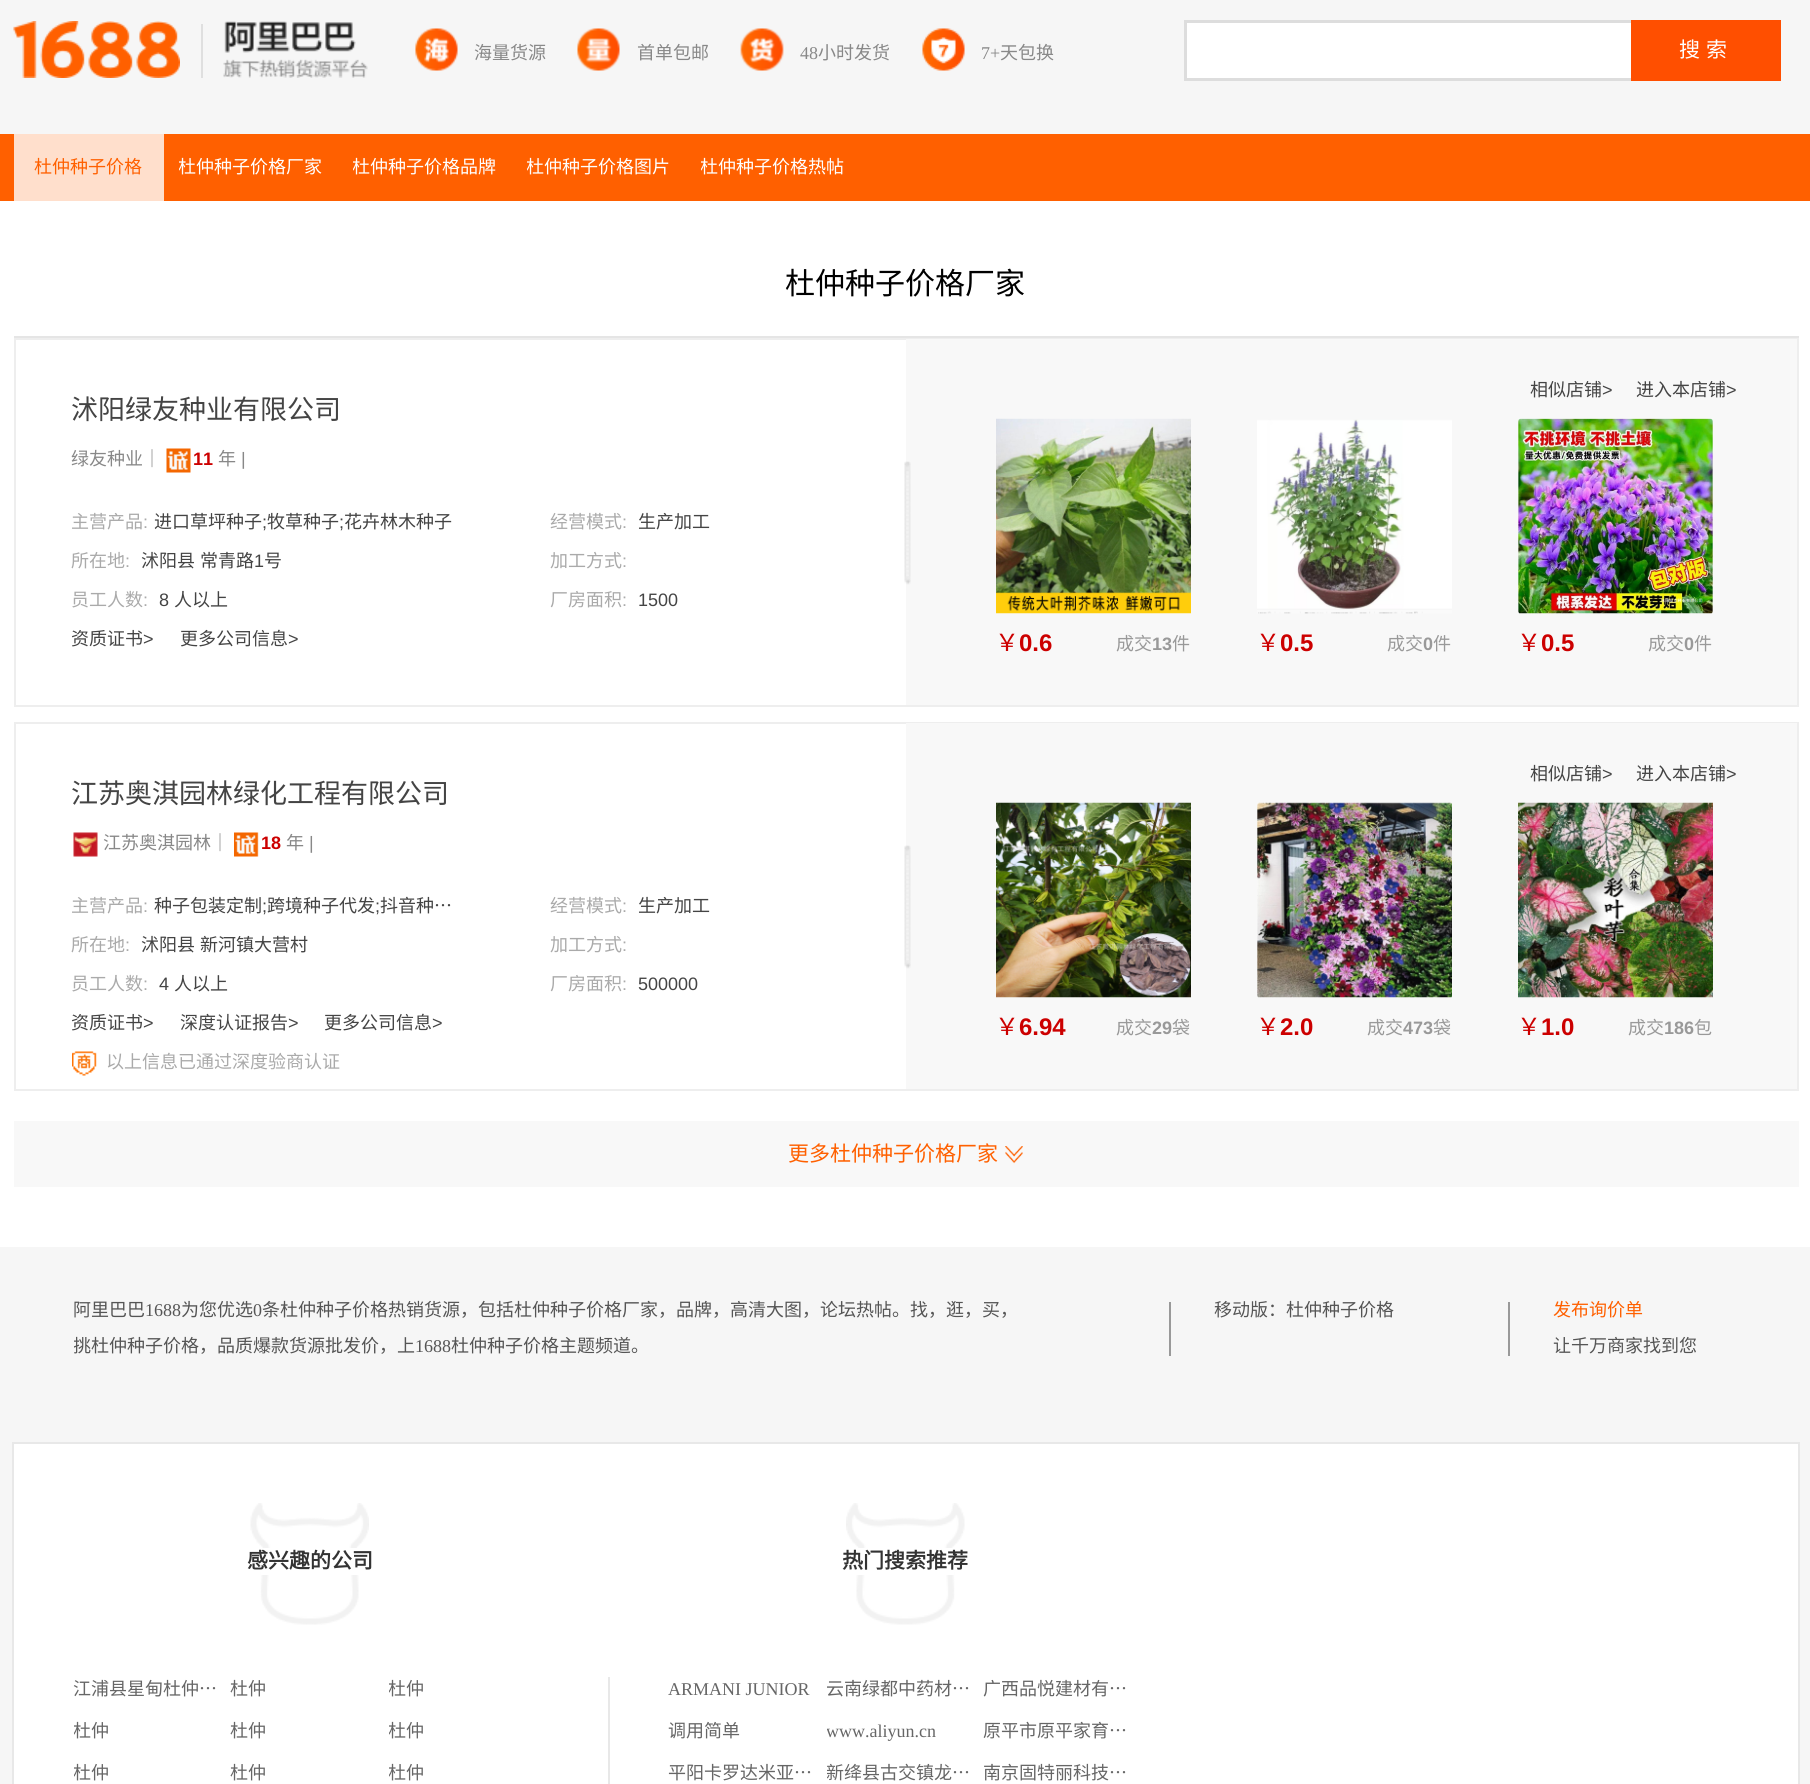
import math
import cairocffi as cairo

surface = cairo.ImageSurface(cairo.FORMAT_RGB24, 1810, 1784)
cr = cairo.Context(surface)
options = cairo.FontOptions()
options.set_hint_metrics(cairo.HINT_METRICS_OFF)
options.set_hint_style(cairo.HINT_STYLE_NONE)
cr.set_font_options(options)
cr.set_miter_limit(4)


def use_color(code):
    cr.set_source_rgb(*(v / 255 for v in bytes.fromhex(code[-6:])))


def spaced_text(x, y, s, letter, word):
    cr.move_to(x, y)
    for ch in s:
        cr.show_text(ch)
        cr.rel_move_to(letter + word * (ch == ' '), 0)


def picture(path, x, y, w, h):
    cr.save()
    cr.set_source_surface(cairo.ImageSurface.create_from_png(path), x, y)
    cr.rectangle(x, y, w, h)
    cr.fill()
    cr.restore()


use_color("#ffffff")
cr.paint()
use_color("#f6f6f6")
cr.rectangle(0, 0, 1810, 134)
cr.fill()
picture("img1.png", 13, 21, 167, 57)
use_color("#dfdfdf")
cr.rectangle(201, 24, 2, 54)
cr.fill()
picture("img2.png", 223, 21, 145, 57)
picture("img3.png", 415, 28, 43, 43)
cr.select_font_face("Noto Sans CJK SC")
cr.set_font_size(18)
use_color("#888888")
cr.move_to(474, 59)
cr.show_text("海量货源")
picture("img4.png", 577, 28, 43, 43)
cr.move_to(637, 59)
cr.show_text("首单包邮")
picture("img5.png", 740, 28, 44, 43)
cr.select_font_face("Liberation Serif")
cr.move_to(800, 59)
cr.show_text("48")
cr.select_font_face("Noto Sans CJK SC")
cr.move_to(818, 59)
cr.show_text("小时发货")
picture("img6.png", 922, 28, 43, 43)
cr.select_font_face("Liberation Serif")
cr.move_to(981, 59)
cr.show_text("7+")
cr.select_font_face("Noto Sans CJK SC")
cr.move_to(1000, 59)
cr.show_text("天包换")
use_color("#ffffff")
cr.rectangle(1187, 23, 444, 55)
cr.fill()
cr.rectangle(1185.5, 21.5, 448, 58)
use_color("#dddddd")
cr.set_line_width(3)
cr.stroke()
use_color("#ff4f00")
cr.rectangle(1631, 20, 150, 61)
cr.fill()
cr.set_font_size(21)
use_color("#ffffff")
spaced_text(1679, 57, "搜索", 6, 0)
use_color("#ff6000")
cr.rectangle(0, 134, 1810, 67)
cr.fill()
use_color("#ffdfcc")
cr.rectangle(14, 134, 150, 67)
cr.fill()
cr.set_font_size(18)
use_color("#ff6000")
cr.move_to(34, 173)
cr.show_text("杜仲种子价格")
cr.save()
cr.rectangle(179, 134, 108, 67)
cr.clip()
use_color("#ffffff")
cr.move_to(178, 173)
cr.show_text("杜仲种子价格")
cr.restore()
use_color("#ffffff")
cr.move_to(286, 173)
cr.show_text("厂家")
cr.save()
cr.rectangle(353, 134, 108, 67)
cr.clip()
cr.move_to(352, 173)
cr.show_text("杜仲种子价格")
cr.restore()
cr.move_to(460, 173)
cr.show_text("品牌")
cr.save()
cr.rectangle(527, 134, 108, 67)
cr.clip()
cr.move_to(526, 173)
cr.show_text("杜仲种子价格")
cr.restore()
cr.move_to(634, 173)
cr.show_text("图片")
cr.save()
cr.rectangle(701, 134, 108, 67)
cr.clip()
cr.move_to(700, 173)
cr.show_text("杜仲种子价格")
cr.restore()
cr.move_to(808, 173)
cr.show_text("热帖")
use_color("#e5e5e5")
cr.rectangle(14, 336, 1785, 2)
cr.fill()
cr.set_font_size(30)
use_color("#000000")
cr.move_to(785, 294)
cr.show_text("杜仲种子价格厂家")
cr.rectangle(15, 339, 1783, 367)
use_color("#eeeeee")
cr.set_line_width(2)
cr.stroke()
cr.set_font_size(27)
use_color("#444444")
cr.move_to(71, 419)
cr.show_text("沭阳绿友种业有限公司")
cr.set_font_size(18)
use_color("#888888")
cr.move_to(71, 465)
cr.show_text("绿友种业｜")
picture("img7.png", 166, 448, 25, 25)
cr.select_font_face("Liberation Sans", cairo.FONT_SLANT_NORMAL, cairo.FONT_WEIGHT_BOLD)
use_color("#cc0000")
cr.move_to(193, 465)
cr.show_text("11")
cr.select_font_face("Noto Sans CJK SC")
use_color("#888888")
cr.move_to(218, 465)
cr.show_text("年")
cr.select_font_face("Liberation Sans")
cr.move_to(241, 465)
cr.show_text("|")
cr.select_font_face("Noto Sans CJK SC")
use_color("#aaaaaa")
cr.move_to(71, 528)
cr.show_text("主营产品")
cr.select_font_face("Liberation Sans")
cr.move_to(143, 528)
cr.show_text(":")
cr.select_font_face("Noto Sans CJK SC")
use_color("#444444")
cr.move_to(154, 528)
cr.show_text("进口草坪种子")
cr.select_font_face("Liberation Sans")
cr.move_to(262, 528)
cr.show_text(";")
cr.select_font_face("Noto Sans CJK SC")
cr.move_to(267, 528)
cr.show_text("牧草种子")
cr.select_font_face("Liberation Sans")
cr.move_to(339, 528)
cr.show_text(";")
cr.select_font_face("Noto Sans CJK SC")
cr.move_to(344, 528)
cr.show_text("花卉林木种子")
use_color("#aaaaaa")
cr.move_to(71, 567)
cr.show_text("所在地")
cr.select_font_face("Liberation Sans")
cr.move_to(125, 567)
cr.show_text(":")
cr.select_font_face("Noto Sans CJK SC")
use_color("#444444")
spaced_text(141, 567, "沭阳县 常青路", 0, 1)
cr.select_font_face("Liberation Sans")
cr.move_to(254, 567)
cr.show_text("1")
cr.select_font_face("Noto Sans CJK SC")
cr.move_to(264, 567)
cr.show_text("号")
use_color("#aaaaaa")
cr.move_to(71, 606)
cr.show_text("员工人数")
cr.select_font_face("Liberation Sans")
cr.move_to(143, 606)
cr.show_text(":")
use_color("#444444")
cr.move_to(159, 606)
cr.show_text("8")
cr.select_font_face("Noto Sans CJK SC")
cr.move_to(174, 606)
cr.show_text("人以上")
cr.move_to(71, 645)
cr.show_text("资质证书")
cr.select_font_face("Liberation Sans")
cr.move_to(143, 645)
cr.show_text(">")
cr.select_font_face("Noto Sans CJK SC")
cr.move_to(180, 645)
cr.show_text("更多公司信息")
cr.select_font_face("Liberation Sans")
cr.move_to(288, 645)
cr.show_text(">")
cr.select_font_face("Noto Sans CJK SC")
use_color("#aaaaaa")
cr.move_to(550, 528)
cr.show_text("经营模式")
cr.select_font_face("Liberation Sans")
cr.move_to(622, 528)
cr.show_text(":")
cr.select_font_face("Noto Sans CJK SC")
use_color("#444444")
cr.move_to(638, 528)
cr.show_text("生产加工")
use_color("#aaaaaa")
cr.move_to(550, 567)
cr.show_text("加工方式")
cr.select_font_face("Liberation Sans")
cr.move_to(622, 567)
cr.show_text(":")
cr.select_font_face("Noto Sans CJK SC")
cr.move_to(550, 606)
cr.show_text("厂房面积")
cr.select_font_face("Liberation Sans")
cr.move_to(622, 606)
cr.show_text(":")
use_color("#444444")
cr.move_to(638, 606)
cr.show_text("1500")
use_color("#f8f8f8")
cr.rectangle(906, 339, 891, 366)
cr.fill()
picture("img8.png", 904, 461, 7, 124)
cr.select_font_face("Noto Sans CJK SC")
use_color("#444444")
cr.move_to(1530, 396)
cr.show_text("相似店铺")
cr.select_font_face("Liberation Sans")
cr.move_to(1602, 396)
cr.show_text(">")
cr.select_font_face("Noto Sans CJK SC")
cr.move_to(1636, 396)
cr.show_text("进入本店铺")
cr.select_font_face("Liberation Sans")
cr.move_to(1726, 396)
cr.show_text(">")
picture("img9.png", 996, 418, 195, 196)
cr.select_font_face("Noto Sans CJK SC")
cr.set_font_size(24)
use_color("#cc0000")
cr.move_to(995, 651)
cr.show_text("￥")
cr.select_font_face("Liberation Sans", cairo.FONT_SLANT_NORMAL, cairo.FONT_WEIGHT_BOLD)
cr.move_to(1019, 651)
cr.show_text("0.6")
cr.select_font_face("Noto Sans CJK SC")
cr.set_font_size(18)
use_color("#999999")
cr.move_to(1116, 650)
cr.show_text("成交")
cr.select_font_face("Liberation Sans", cairo.FONT_SLANT_NORMAL, cairo.FONT_WEIGHT_BOLD)
cr.move_to(1152, 650)
cr.show_text("13")
cr.select_font_face("Noto Sans CJK SC")
cr.move_to(1172, 650)
cr.show_text("件")
picture("img10.png", 1257, 419, 195, 195)
cr.set_font_size(24)
use_color("#cc0000")
cr.move_to(1256, 651)
cr.show_text("￥")
cr.select_font_face("Liberation Sans", cairo.FONT_SLANT_NORMAL, cairo.FONT_WEIGHT_BOLD)
cr.move_to(1280, 651)
cr.show_text("0.5")
cr.select_font_face("Noto Sans CJK SC")
cr.set_font_size(18)
use_color("#999999")
cr.move_to(1387, 650)
cr.show_text("成交")
cr.select_font_face("Liberation Sans", cairo.FONT_SLANT_NORMAL, cairo.FONT_WEIGHT_BOLD)
cr.move_to(1423, 650)
cr.show_text("0")
cr.select_font_face("Noto Sans CJK SC")
cr.move_to(1433, 650)
cr.show_text("件")
picture("img11.png", 1518, 418, 195, 196)
cr.set_font_size(24)
use_color("#cc0000")
cr.move_to(1517, 651)
cr.show_text("￥")
cr.select_font_face("Liberation Sans", cairo.FONT_SLANT_NORMAL, cairo.FONT_WEIGHT_BOLD)
cr.move_to(1541, 651)
cr.show_text("0.5")
cr.select_font_face("Noto Sans CJK SC")
cr.set_font_size(18)
use_color("#999999")
cr.move_to(1648, 650)
cr.show_text("成交")
cr.select_font_face("Liberation Sans", cairo.FONT_SLANT_NORMAL, cairo.FONT_WEIGHT_BOLD)
cr.move_to(1684, 650)
cr.show_text("0")
cr.select_font_face("Noto Sans CJK SC")
cr.move_to(1694, 650)
cr.show_text("件")
cr.rectangle(15, 723, 1783, 367)
use_color("#eeeeee")
cr.stroke()
cr.set_font_size(27)
use_color("#444444")
cr.move_to(71, 803)
cr.show_text("江苏奥淇园林绿化工程有限公司")
picture("img12.png", 73, 832, 25, 25)
cr.set_font_size(18)
use_color("#888888")
cr.move_to(103, 849)
cr.show_text("江苏奥淇园林｜")
picture("img13.png", 234, 832, 25, 25)
cr.select_font_face("Liberation Sans", cairo.FONT_SLANT_NORMAL, cairo.FONT_WEIGHT_BOLD)
use_color("#cc0000")
cr.move_to(261, 849)
cr.show_text("18")
cr.select_font_face("Noto Sans CJK SC")
use_color("#888888")
cr.move_to(286, 849)
cr.show_text("年")
cr.select_font_face("Liberation Sans")
cr.move_to(309, 849)
cr.show_text("|")
cr.select_font_face("Noto Sans CJK SC")
use_color("#aaaaaa")
cr.move_to(71, 912)
cr.show_text("主营产品")
cr.select_font_face("Liberation Sans")
cr.move_to(143, 912)
cr.show_text(":")
cr.select_font_face("Noto Sans CJK SC")
use_color("#444444")
cr.move_to(154, 912)
cr.show_text("种子包装定制")
cr.select_font_face("Liberation Sans")
cr.move_to(262, 912)
cr.show_text(";")
cr.select_font_face("Noto Sans CJK SC")
cr.move_to(267, 912)
cr.show_text("跨境种子代发")
cr.select_font_face("Liberation Sans")
cr.move_to(375, 912)
cr.show_text(";")
cr.select_font_face("Noto Sans CJK SC")
cr.move_to(380, 912)
cr.show_text("抖音种…")
use_color("#aaaaaa")
cr.move_to(71, 951)
cr.show_text("所在地")
cr.select_font_face("Liberation Sans")
cr.move_to(125, 951)
cr.show_text(":")
cr.select_font_face("Noto Sans CJK SC")
use_color("#444444")
spaced_text(141, 951, "沭阳县 新河镇大营村", 0, 1)
use_color("#aaaaaa")
cr.move_to(71, 990)
cr.show_text("员工人数")
cr.select_font_face("Liberation Sans")
cr.move_to(143, 990)
cr.show_text(":")
use_color("#444444")
cr.move_to(159, 990)
cr.show_text("4")
cr.select_font_face("Noto Sans CJK SC")
cr.move_to(174, 990)
cr.show_text("人以上")
cr.move_to(71, 1029)
cr.show_text("资质证书")
cr.select_font_face("Liberation Sans")
cr.move_to(143, 1029)
cr.show_text(">")
cr.select_font_face("Noto Sans CJK SC")
cr.move_to(180, 1029)
cr.show_text("深度认证报告")
cr.select_font_face("Liberation Sans")
cr.move_to(288, 1029)
cr.show_text(">")
cr.select_font_face("Noto Sans CJK SC")
cr.move_to(324, 1029)
cr.show_text("更多公司信息")
cr.select_font_face("Liberation Sans")
cr.move_to(432, 1029)
cr.show_text(">")
cr.select_font_face("Noto Sans CJK SC")
use_color("#aaaaaa")
cr.move_to(550, 912)
cr.show_text("经营模式")
cr.select_font_face("Liberation Sans")
cr.move_to(622, 912)
cr.show_text(":")
cr.select_font_face("Noto Sans CJK SC")
use_color("#444444")
cr.move_to(638, 912)
cr.show_text("生产加工")
use_color("#aaaaaa")
cr.move_to(550, 951)
cr.show_text("加工方式")
cr.select_font_face("Liberation Sans")
cr.move_to(622, 951)
cr.show_text(":")
cr.select_font_face("Noto Sans CJK SC")
cr.move_to(550, 990)
cr.show_text("厂房面积")
cr.select_font_face("Liberation Sans")
cr.move_to(622, 990)
cr.show_text(":")
use_color("#444444")
cr.move_to(638, 990)
cr.show_text("500000")
picture("img14.png", 72, 1051, 25, 25)
cr.select_font_face("Noto Sans CJK SC")
use_color("#aaaaaa")
cr.move_to(106, 1068)
cr.show_text("以上信息已通过深度验商认证")
use_color("#f8f8f8")
cr.rectangle(906, 723, 891, 366)
cr.fill()
picture("img8.png", 904, 845, 7, 124)
use_color("#444444")
cr.move_to(1530, 780)
cr.show_text("相似店铺")
cr.select_font_face("Liberation Sans")
cr.move_to(1602, 780)
cr.show_text(">")
cr.select_font_face("Noto Sans CJK SC")
cr.move_to(1636, 780)
cr.show_text("进入本店铺")
cr.select_font_face("Liberation Sans")
cr.move_to(1726, 780)
cr.show_text(">")
picture("img15.png", 996, 802, 195, 196)
cr.select_font_face("Noto Sans CJK SC")
cr.set_font_size(24)
use_color("#cc0000")
cr.move_to(995, 1035)
cr.show_text("￥")
cr.select_font_face("Liberation Sans", cairo.FONT_SLANT_NORMAL, cairo.FONT_WEIGHT_BOLD)
cr.move_to(1019, 1035)
cr.show_text("6.94")
cr.select_font_face("Noto Sans CJK SC")
cr.set_font_size(18)
use_color("#999999")
cr.move_to(1116, 1034)
cr.show_text("成交")
cr.select_font_face("Liberation Sans", cairo.FONT_SLANT_NORMAL, cairo.FONT_WEIGHT_BOLD)
cr.move_to(1152, 1034)
cr.show_text("29")
cr.select_font_face("Noto Sans CJK SC")
cr.move_to(1172, 1034)
cr.show_text("袋")
picture("img16.png", 1257, 802, 195, 196)
cr.set_font_size(24)
use_color("#cc0000")
cr.move_to(1256, 1035)
cr.show_text("￥")
cr.select_font_face("Liberation Sans", cairo.FONT_SLANT_NORMAL, cairo.FONT_WEIGHT_BOLD)
cr.move_to(1280, 1035)
cr.show_text("2.0")
cr.select_font_face("Noto Sans CJK SC")
cr.set_font_size(18)
use_color("#999999")
cr.move_to(1367, 1034)
cr.show_text("成交")
cr.select_font_face("Liberation Sans", cairo.FONT_SLANT_NORMAL, cairo.FONT_WEIGHT_BOLD)
cr.move_to(1403, 1034)
cr.show_text("473")
cr.select_font_face("Noto Sans CJK SC")
cr.move_to(1433, 1034)
cr.show_text("袋")
picture("img17.png", 1518, 802, 195, 196)
cr.set_font_size(24)
use_color("#cc0000")
cr.move_to(1517, 1035)
cr.show_text("￥")
cr.select_font_face("Liberation Sans", cairo.FONT_SLANT_NORMAL, cairo.FONT_WEIGHT_BOLD)
cr.move_to(1541, 1035)
cr.show_text("1.0")
cr.select_font_face("Noto Sans CJK SC")
cr.set_font_size(18)
use_color("#999999")
cr.move_to(1628, 1034)
cr.show_text("成交")
cr.select_font_face("Liberation Sans", cairo.FONT_SLANT_NORMAL, cairo.FONT_WEIGHT_BOLD)
cr.move_to(1664, 1034)
cr.show_text("186")
cr.select_font_face("Noto Sans CJK SC")
cr.move_to(1694, 1034)
cr.show_text("包")
use_color("#f8f8f8")
cr.rectangle(14, 1121, 1785, 66)
cr.fill()
cr.set_font_size(21)
use_color("#ff6000")
cr.move_to(788, 1161)
cr.show_text("更多杜仲种子价格厂家")
picture("img18.png", 1005, 1146, 18, 18)
use_color("#f6f6f6")
cr.rectangle(0, 1247, 1810, 537)
cr.fill()
cr.set_font_size(18)
use_color("#555555")
cr.move_to(73, 1316)
cr.show_text("阿里巴巴")
cr.select_font_face("Liberation Serif")
cr.move_to(145, 1316)
cr.show_text("1688")
cr.select_font_face("Noto Sans CJK SC")
cr.move_to(181, 1316)
cr.show_text("为您优选")
cr.select_font_face("Liberation Serif")
cr.move_to(253, 1316)
cr.show_text("0")
cr.select_font_face("Noto Sans CJK SC")
cr.move_to(262, 1316)
cr.show_text("条杜仲种子价格热销货源，包括杜仲种子价格厂家，品牌，高清大图，论坛热帖。找，逛，买，")
cr.save()
cr.rectangle(74, 1292, 952, 72)
cr.clip()
cr.move_to(73, 1352)
cr.show_text("挑杜仲种子价格，品质爆款货源批发价，上")
cr.restore()
cr.select_font_face("Liberation Serif")
cr.move_to(415, 1352)
cr.show_text("1688")
cr.select_font_face("Noto Sans CJK SC")
cr.move_to(451, 1352)
cr.show_text("杜仲种子价格主题频道。")
use_color("#999999")
cr.rectangle(1169, 1302, 2, 54)
cr.fill()
use_color("#555555")
cr.move_to(1214, 1316)
cr.show_text("移动版：杜仲种子价格")
use_color("#999999")
cr.rectangle(1508, 1302, 2, 54)
cr.fill()
use_color("#ff6000")
cr.move_to(1553, 1316)
cr.show_text("发布询价单")
use_color("#555555")
cr.move_to(1553, 1352)
cr.show_text("让千万商家找到您")
use_color("#ffffff")
cr.rectangle(13, 1443, 1786, 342)
cr.fill_preserve()
use_color("#e8e8e8")
cr.stroke()
picture("img19.png", 250, 1503, 119, 122)
use_color("#ffffff")
cr.rectangle(261, 1548, 98, 27)
cr.fill()
cr.select_font_face("Noto Sans CJK SC", cairo.FONT_SLANT_NORMAL, cairo.FONT_WEIGHT_BOLD)
cr.set_font_size(21)
use_color("#333333")
cr.move_to(247, 1568)
cr.show_text("感兴趣的公司")
cr.select_font_face("Noto Sans CJK SC")
cr.set_font_size(18)
use_color("#666666")
cr.move_to(73, 1695)
cr.show_text("江浦县星甸杜仲…")
cr.move_to(230, 1695)
cr.show_text("杜仲")
cr.save()
cr.rectangle(389, 1668, 157, 42)
cr.clip()
cr.move_to(388, 1695)
cr.show_text("杜仲")
cr.restore()
cr.save()
cr.rectangle(74, 1710, 157, 42)
cr.clip()
cr.move_to(73, 1737)
cr.show_text("杜仲")
cr.restore()
cr.move_to(230, 1737)
cr.show_text("杜仲")
cr.save()
cr.rectangle(389, 1710, 157, 42)
cr.clip()
cr.move_to(388, 1737)
cr.show_text("杜仲")
cr.restore()
cr.save()
cr.rectangle(74, 1752, 157, 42)
cr.clip()
cr.move_to(73, 1779)
cr.show_text("杜仲")
cr.restore()
cr.move_to(230, 1779)
cr.show_text("杜仲")
cr.save()
cr.rectangle(389, 1752, 157, 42)
cr.clip()
cr.move_to(388, 1779)
cr.show_text("杜仲")
cr.restore()
use_color("#e8e8e8")
cr.rectangle(608, 1677, 2, 107)
cr.fill()
picture("img20.png", 846, 1503, 119, 122)
use_color("#ffffff")
cr.rectangle(856, 1548, 98, 27)
cr.fill()
cr.select_font_face("Noto Sans CJK SC", cairo.FONT_SLANT_NORMAL, cairo.FONT_WEIGHT_BOLD)
cr.set_font_size(21)
use_color("#333333")
cr.move_to(842, 1568)
cr.show_text("热门搜索推荐")
cr.select_font_face("Liberation Serif")
cr.set_font_size(18)
use_color("#666666")
cr.move_to(668, 1695)
cr.show_text("ARMANI JUNIOR")
cr.select_font_face("Noto Sans CJK SC")
cr.move_to(826, 1695)
cr.show_text("云南绿都中药材…")
cr.move_to(983, 1695)
cr.show_text("广西品悦建材有…")
cr.move_to(668, 1737)
cr.show_text("调用简单")
cr.save()
cr.rectangle(827, 1710, 157, 42)
cr.clip()
cr.select_font_face("Liberation Serif")
cr.move_to(826, 1737)
cr.show_text("www.aliyun.cn")
cr.restore()
cr.move_to(983, 1737)
cr.show_text("原平市原平家育…")
cr.move_to(668, 1779)
cr.show_text("平阳卡罗达米亚…")
cr.save()
cr.rectangle(827, 1752, 157, 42)
cr.clip()
cr.move_to(826, 1779)
cr.show_text("新绛县古交镇龙…")
cr.restore()
cr.move_to(983, 1779)
cr.show_text("南京固特丽科技…")
surface.write_to_png("result.png")
